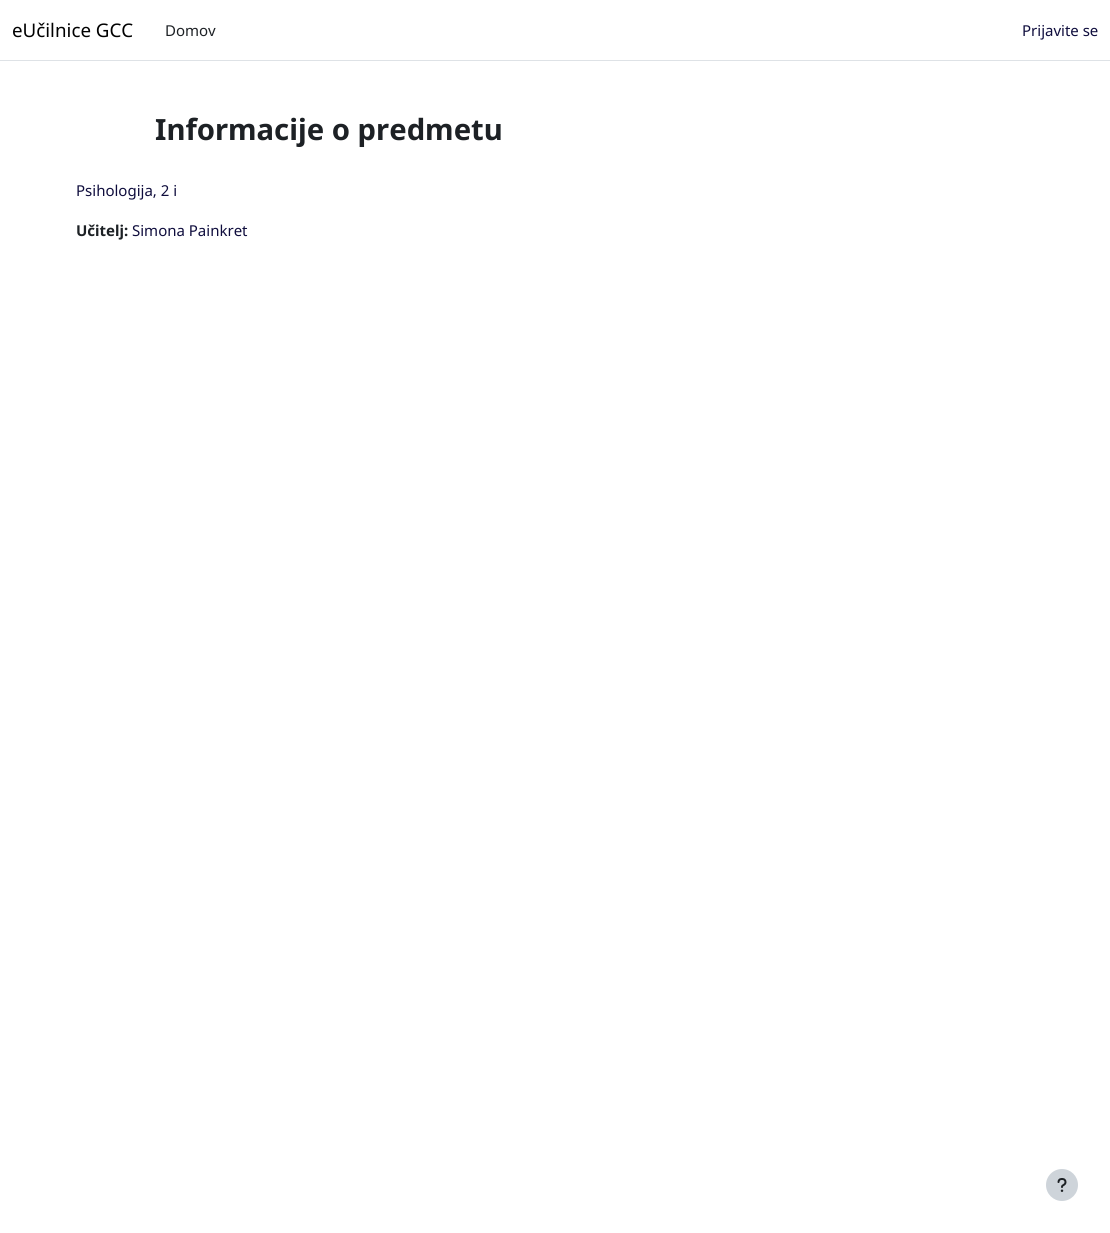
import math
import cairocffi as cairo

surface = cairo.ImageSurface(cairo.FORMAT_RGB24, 1110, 1233)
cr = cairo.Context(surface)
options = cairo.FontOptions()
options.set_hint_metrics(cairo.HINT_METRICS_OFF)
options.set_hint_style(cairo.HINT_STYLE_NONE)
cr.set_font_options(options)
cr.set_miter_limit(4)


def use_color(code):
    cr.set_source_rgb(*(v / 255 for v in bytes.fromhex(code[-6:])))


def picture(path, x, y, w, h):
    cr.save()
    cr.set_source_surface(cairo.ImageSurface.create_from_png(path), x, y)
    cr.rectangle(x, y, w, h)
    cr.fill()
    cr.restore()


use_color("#ffffff")
cr.paint()
use_color("#dee2e6")
cr.rectangle(0, 60, 1110, 1)
cr.fill()
cr.select_font_face("Noto Sans")
cr.set_font_size(18.75)
use_color("#000000")
cr.move_to(12, 37)
cr.show_text("eUčilnice GCC")
cr.set_font_size(15)
use_color("#1d2125")
cr.move_to(165, 36)
cr.show_text("Domov")
use_color("#0f0d3d")
cr.move_to(1022, 36)
cr.show_text("Prijavite se")
cr.select_font_face("Noto Sans", cairo.FONT_SLANT_NORMAL, cairo.FONT_WEIGHT_BOLD)
cr.set_font_size(29.25)
use_color("#1d2125")
cr.move_to(155, 140)
cr.show_text("Informacije o predmetu")
cr.select_font_face("Noto Sans")
cr.set_font_size(15)
use_color("#0f0d3d")
cr.move_to(76, 196)
cr.show_text("Psihologija, 2 i")
cr.select_font_face("Noto Sans", cairo.FONT_SLANT_NORMAL, cairo.FONT_WEIGHT_BOLD)
use_color("#1d2125")
cr.move_to(76, 236)
cr.show_text("Učitelj:")
cr.select_font_face("Noto Sans")
use_color("#0f0d3d")
cr.move_to(132, 236)
cr.show_text("Simona Painkret")
use_color("#ced4da")
cr.new_path()
cr.arc(1062, 1185, 16, 0, 2 * math.pi)
cr.fill()
picture("img1.png", 1057, 1178, 10, 14)
surface.write_to_png("result.png")
